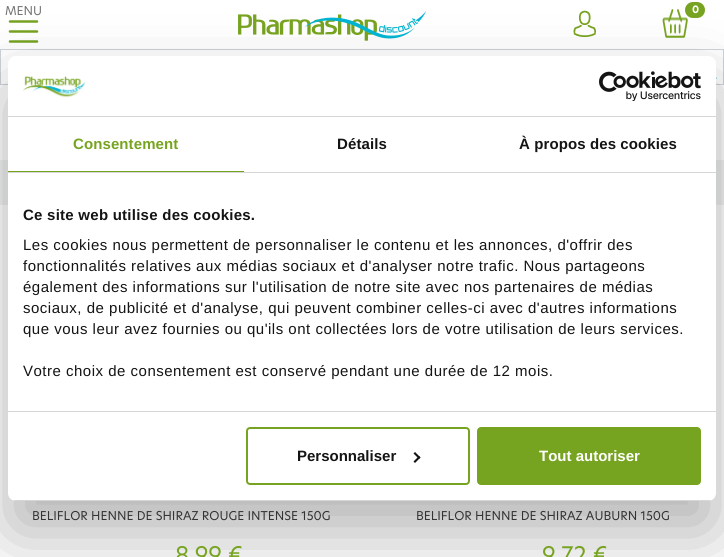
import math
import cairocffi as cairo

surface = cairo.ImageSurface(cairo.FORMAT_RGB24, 724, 557)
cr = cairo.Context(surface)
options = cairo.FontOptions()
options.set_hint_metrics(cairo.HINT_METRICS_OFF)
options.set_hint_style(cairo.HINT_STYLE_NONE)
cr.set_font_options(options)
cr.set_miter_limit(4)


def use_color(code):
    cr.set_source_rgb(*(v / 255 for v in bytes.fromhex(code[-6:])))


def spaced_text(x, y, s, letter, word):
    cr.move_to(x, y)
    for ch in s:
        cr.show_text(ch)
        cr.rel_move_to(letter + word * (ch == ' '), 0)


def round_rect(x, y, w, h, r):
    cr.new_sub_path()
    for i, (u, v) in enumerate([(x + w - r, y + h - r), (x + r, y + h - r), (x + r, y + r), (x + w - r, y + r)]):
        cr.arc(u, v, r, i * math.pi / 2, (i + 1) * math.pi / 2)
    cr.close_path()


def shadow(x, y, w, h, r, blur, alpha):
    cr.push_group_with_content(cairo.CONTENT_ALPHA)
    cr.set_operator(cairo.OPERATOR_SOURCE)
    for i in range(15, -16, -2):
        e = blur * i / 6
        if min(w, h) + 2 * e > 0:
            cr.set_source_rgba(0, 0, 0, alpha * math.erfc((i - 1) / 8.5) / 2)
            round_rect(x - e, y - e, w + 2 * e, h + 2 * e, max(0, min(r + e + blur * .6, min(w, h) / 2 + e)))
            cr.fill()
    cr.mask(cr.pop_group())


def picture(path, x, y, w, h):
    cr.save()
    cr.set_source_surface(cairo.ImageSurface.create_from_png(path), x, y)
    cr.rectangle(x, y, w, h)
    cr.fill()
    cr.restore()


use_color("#ffffff")
cr.paint()
cr.select_font_face("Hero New")
cr.set_font_size(12)
use_color("#737373")
cr.move_to(5, 15)
cr.show_text("MENU")
cr.new_path()
cr.move_to(10, 21.5)
cr.line_to(37, 21.5)
cr.move_to(10, 31.5)
cr.line_to(37, 31.5)
cr.move_to(10, 41.5)
cr.line_to(37, 41.5)
use_color("#75a120")
cr.set_line_width(2.5)
cr.set_line_cap(cairo.LINE_CAP_ROUND)
cr.stroke()
picture("img1.png", 238, 11, 188, 30)
picture("img2.png", 573, 10, 23, 27)
picture("img3.png", 662, 9, 26, 29)
use_color("#77a420")
round_rect(685, 2, 20, 16, 8)
cr.fill()
cr.select_font_face("Hero New", cairo.FONT_SLANT_NORMAL, cairo.FONT_WEIGHT_BOLD)
cr.set_font_size(10)
use_color("#ffffff")
cr.move_to(692, 13)
cr.show_text("0")
use_color("#ced4da")
cr.rectangle(0, 49, 724, 1)
cr.fill()
cr.rectangle(0, 84, 8, 1)
cr.fill()
cr.rectangle(0, 49, 1, 36)
cr.fill()
picture("img4.png", 711, 57, 6, 23)
cr.rectangle(723, 49, 1, 36)
cr.fill()
cr.rectangle(716, 84, 8, 1)
cr.fill()
use_color("#f1f2f2")
cr.rectangle(0, 160, 724, 45)
cr.fill()
use_color("#000000")
shadow(8, 88, 708, 445, 8, 34, 0.3)
use_color("#ffffff")
round_rect(8, 56, 708, 445, 8)
cr.fill()
use_color("#d6d6d6")
cr.rectangle(8, 116, 708, 1)
cr.fill()
picture("img5.png", 23, 76, 62, 22)
picture("img6.png", 599, 71, 102, 30)
cr.rectangle(8, 172, 708, 1)
cr.fill()
use_color("#77a420")
cr.rectangle(8, 171, 236, 1)
cr.fill()
cr.select_font_face("Liberation Sans", cairo.FONT_SLANT_NORMAL, cairo.FONT_WEIGHT_BOLD)
cr.set_font_size(15)
spaced_text(73, 149, "Consentement", 0.1, 0)
use_color("#141414")
spaced_text(337, 149, "Détails", 0.1, 0)
spaced_text(519, 149, "À propos des cookies", 0.1, 0)
use_color("#d6d6d6")
cr.rectangle(8, 411, 708, 1)
cr.fill()
use_color("#141414")
spaced_text(23, 220, "Ce site web utilise des cookies.", 0.25, 0)
cr.select_font_face("Liberation Sans")
spaced_text(23, 250, "Les cookies nous permettent de personnaliser le contenu et les annonces, d'offrir des", 0.5, 0)
spaced_text(23, 271, "fonctionnalités relatives aux médias sociaux et d'analyser notre trafic. Nous partageons", 0.5, 0)
spaced_text(23, 292, "également des informations sur l'utilisation de notre site avec nos partenaires de médias", 0.5, 0)
spaced_text(23, 313, "sociaux, de publicité et d'analyse, qui peuvent combiner celles-ci avec d'autres informations", 0.5, 0)
spaced_text(23, 334, "que vous leur avez fournies ou qu'ils ont collectées lors de votre utilisation de leurs services.", 0.5, 0)
spaced_text(23, 376, "Votre choix de consentement est conservé pendant une durée de 12 mois.", 0.5, 0)
cr.save()
round_rect(8, 56, 708, 445, 8)
cr.clip()
use_color("#d6d6d6")
cr.rectangle(8, 500, 708, 1)
cr.fill()
cr.restore()
round_rect(247, 428, 222, 56, 3)
use_color("#77a420")
cr.set_line_width(2)
cr.set_line_cap(cairo.LINE_CAP_BUTT)
cr.stroke()
cr.select_font_face("Liberation Sans", cairo.FONT_SLANT_NORMAL, cairo.FONT_WEIGHT_BOLD)
use_color("#141414")
cr.move_to(297, 461)
cr.show_text("Personnaliser")
cr.new_path()
cr.move_to(415, 452)
cr.line_to(420.5, 457.5)
cr.line_to(419, 459)
cr.line_to(413.5, 453.5)
cr.close_path()
cr.fill()
cr.new_path()
cr.move_to(419, 456)
cr.line_to(420.5, 457.5)
cr.line_to(415, 463)
cr.line_to(413.5, 461.5)
cr.close_path()
cr.fill()
use_color("#77a420")
round_rect(478, 428, 222, 56, 3)
cr.fill_preserve()
cr.stroke()
use_color("#ffffff")
cr.move_to(539, 461)
cr.show_text("Tout autoriser")
cr.select_font_face("Hero New")
cr.set_font_size(12)
use_color("#333333")
cr.move_to(32, 520)
cr.show_text("BELIFLOR HENNE DE SHIRAZ ROUGE INTENSE 150G")
cr.set_font_size(22.5)
use_color("#77a420")
cr.move_to(175, 563)
cr.show_text("8,99 €")
cr.set_font_size(12)
use_color("#333333")
cr.move_to(416, 520)
cr.show_text("BELIFLOR HENNE DE SHIRAZ AUBURN 150G")
cr.set_font_size(22.5)
use_color("#77a420")
cr.move_to(542, 563)
cr.show_text("9,72 €")
surface.write_to_png("result.png")
